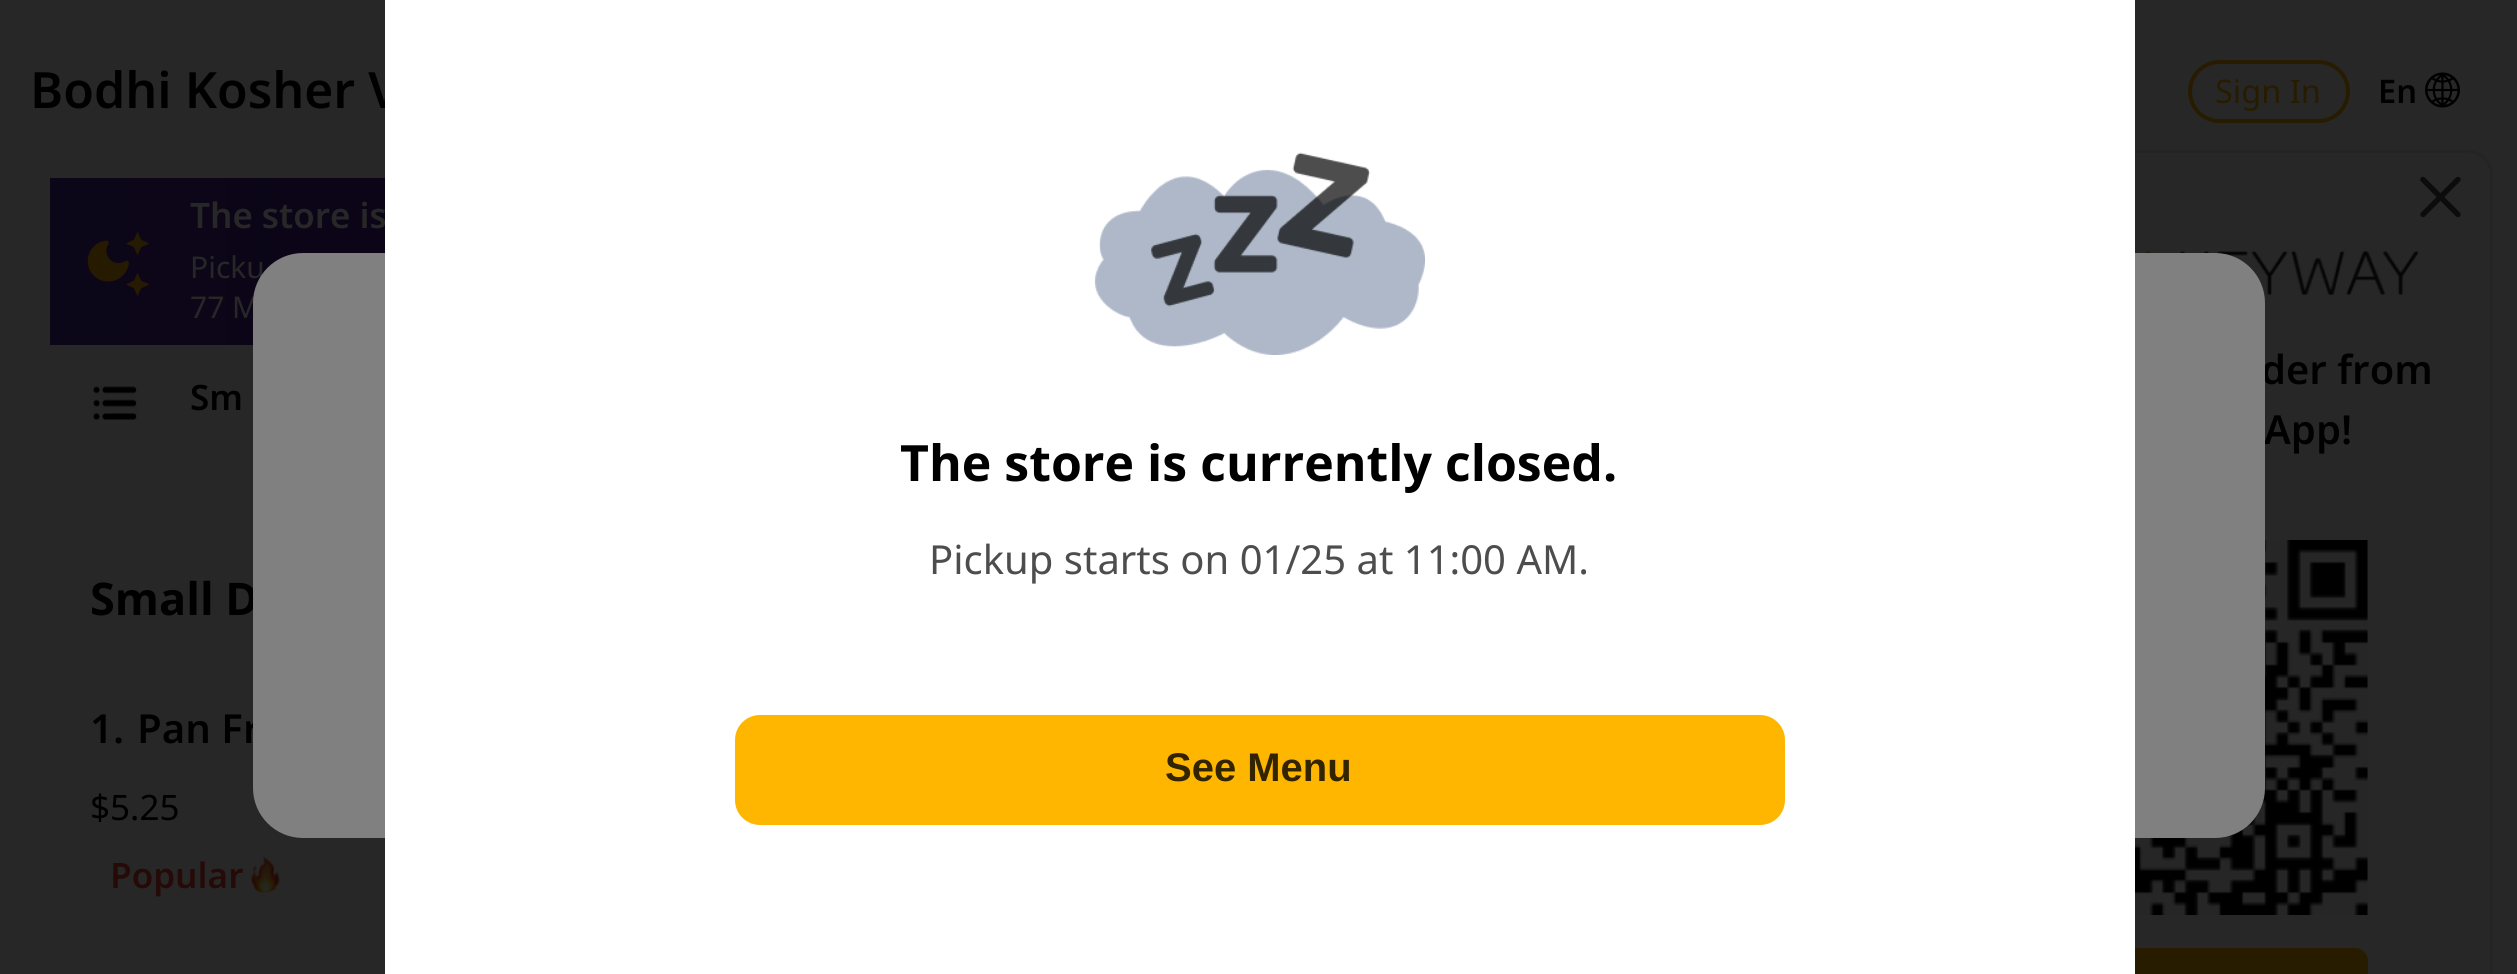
import math
import cairocffi as cairo

surface = cairo.ImageSurface(cairo.FORMAT_RGB24, 2517, 974)
cr = cairo.Context(surface)
options = cairo.FontOptions()
options.set_hint_metrics(cairo.HINT_METRICS_OFF)
options.set_hint_style(cairo.HINT_STYLE_NONE)
cr.set_font_options(options)
cr.set_miter_limit(4)


def use_color(code):
    cr.set_source_rgb(*(v / 255 for v in bytes.fromhex(code[-6:])))


def round_rect(x, y, w, h, r):
    cr.new_sub_path()
    for i, (u, v) in enumerate([(x + w - r, y + h - r), (x + r, y + h - r), (x + r, y + r), (x + w - r, y + r)]):
        cr.arc(u, v, r, i * math.pi / 2, (i + 1) * math.pi / 2)
    cr.close_path()


def picture(path, x, y, w, h):
    cr.save()
    cr.set_source_surface(cairo.ImageSurface.create_from_png(path), x, y)
    cr.rectangle(x, y, w, h)
    cr.fill()
    cr.restore()


use_color("#272727")
cr.paint()
cr.select_font_face("Noto Sans SemiBold")
cr.set_font_size(50)
use_color("#000000")
cr.move_to(30, 108)
cr.show_text("Bodhi Kosher V")
round_rect(2190, 62, 158, 59, 29.5)
use_color("#271c00")
cr.set_line_width(4)
cr.stroke()
cr.select_font_face("Noto Sans")
cr.set_font_size(32.5)
cr.move_to(2215, 103)
cr.show_text("Sign In")
cr.select_font_face("Noto Sans SemiBold")
use_color("#000000")
cr.move_to(2378, 103)
cr.show_text("En")
picture("img1.png", 2425, 72, 35, 36)
gradient = cairo.LinearGradient(50, 261, 2468, 261)
gradient.add_color_stop_rgba(0, 0.047, 0.024, 0.098, 1)
gradient.add_color_stop_rgba(0.36, 0.039, 0.012, 0.075, 1)
gradient.add_color_stop_rgba(1, 0.027, 0.004, 0.043, 1)
cr.set_source(gradient)
cr.rectangle(50, 178, 335, 167)
cr.fill()
picture("img2.png", 87, 232, 63, 64)
cr.set_font_size(35)
use_color("#272727")
cr.move_to(190, 228)
cr.show_text("The store is")
cr.select_font_face("Noto Sans")
cr.set_font_size(30)
cr.move_to(190, 278)
cr.show_text("Picku")
cr.move_to(190, 318)
cr.show_text("77 M")
picture("img3.png", 93, 386, 44, 34)
cr.select_font_face("Noto Sans SemiBold")
cr.set_font_size(35)
use_color("#000000")
cr.move_to(190, 410)
cr.show_text("Sm")
round_rect(1869.5, 151.5, 622, 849, 23.5)
use_color("#232424")
cr.set_line_width(3)
cr.stroke()
picture("img4.png", 2420, 176, 41, 42)
picture("img5.png", 2145, 250, 274, 45)
cr.set_font_size(40)
use_color("#000000")
cr.move_to(2261, 384)
cr.show_text("der from")
cr.move_to(2264, 444)
cr.show_text("App!")
picture("img6.png", 2135, 540, 233, 375)
use_color("#271c00")
round_rect(1993, 948, 375, 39, 13)
cr.fill()
cr.select_font_face("Noto Sans", cairo.FONT_SLANT_NORMAL, cairo.FONT_WEIGHT_BOLD)
cr.set_font_size(45)
use_color("#000000")
cr.move_to(90, 615)
cr.show_text("Small D")
cr.select_font_face("Noto Sans SemiBold")
cr.set_font_size(40)
cr.move_to(90, 743)
cr.show_text("1.")
cr.move_to(137, 743)
cr.show_text("Pan Fr")
cr.select_font_face("Noto Sans")
cr.set_font_size(35)
cr.move_to(90, 820)
cr.show_text("$5.25")
cr.select_font_face("Noto Sans SemiBold")
use_color("#250a08")
cr.move_to(110, 888)
cr.show_text("Popular")
picture("img7.png", 250, 857, 30, 36)
use_color("#808080")
round_rect(253, 253, 2012, 585, 50)
cr.fill()
use_color("#ffffff")
cr.rectangle(385, 0, 1750, 974)
cr.fill()
picture("img8.png", 1094, 152, 331, 203)
cr.select_font_face("Noto Sans", cairo.FONT_SLANT_NORMAL, cairo.FONT_WEIGHT_BOLD)
cr.set_font_size(50)
use_color("#000000")
cr.move_to(900, 481)
cr.show_text("The store is currently closed.")
cr.select_font_face("Noto Sans")
cr.set_font_size(40)
use_color("#4d4d4d")
cr.move_to(929, 574)
cr.show_text("Pickup starts on 01/25 at 11:00 AM.")
use_color("#ffb600")
round_rect(735, 715, 1050, 110, 25)
cr.fill()
cr.select_font_face("Liberation Sans", cairo.FONT_SLANT_NORMAL, cairo.FONT_WEIGHT_BOLD)
use_color("#332400")
cr.move_to(1165, 781)
cr.show_text("See Menu")
surface.write_to_png("result.png")
